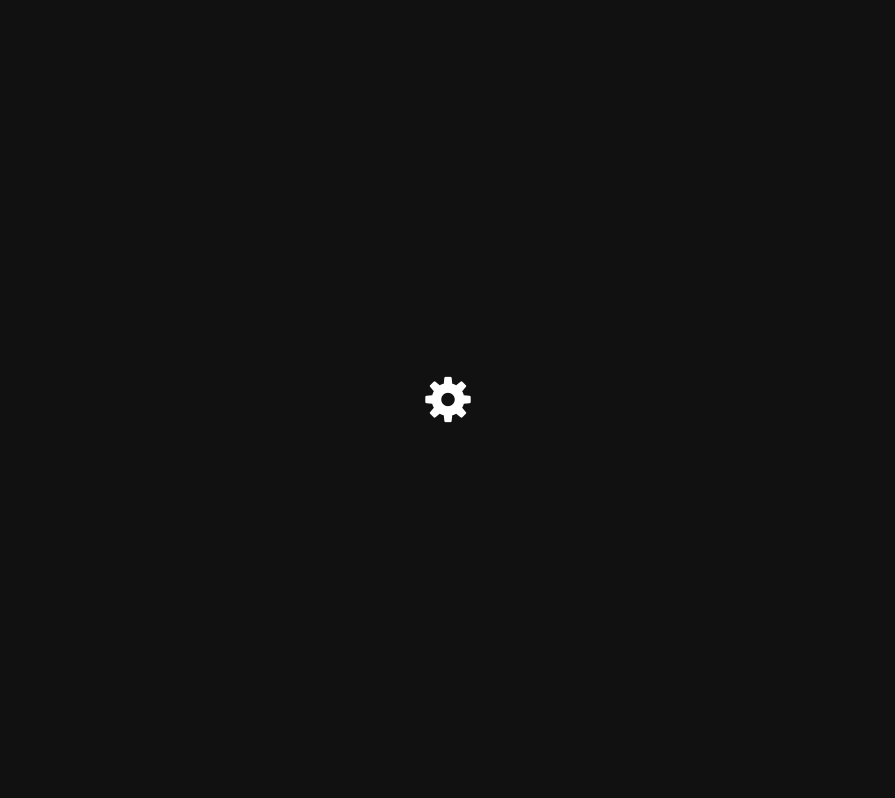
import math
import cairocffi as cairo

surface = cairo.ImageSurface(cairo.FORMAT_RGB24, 895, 798)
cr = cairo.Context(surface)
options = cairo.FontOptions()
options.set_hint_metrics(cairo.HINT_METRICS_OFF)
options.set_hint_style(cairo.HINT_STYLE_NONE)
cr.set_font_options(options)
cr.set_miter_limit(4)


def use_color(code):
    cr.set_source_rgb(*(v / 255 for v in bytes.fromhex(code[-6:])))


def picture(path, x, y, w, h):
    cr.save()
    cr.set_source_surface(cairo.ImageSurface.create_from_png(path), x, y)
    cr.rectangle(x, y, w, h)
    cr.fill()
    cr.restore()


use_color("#111111")
cr.paint()
picture("img1.png", 425, 376, 46, 47)
surface.write_to_png("result.png")
